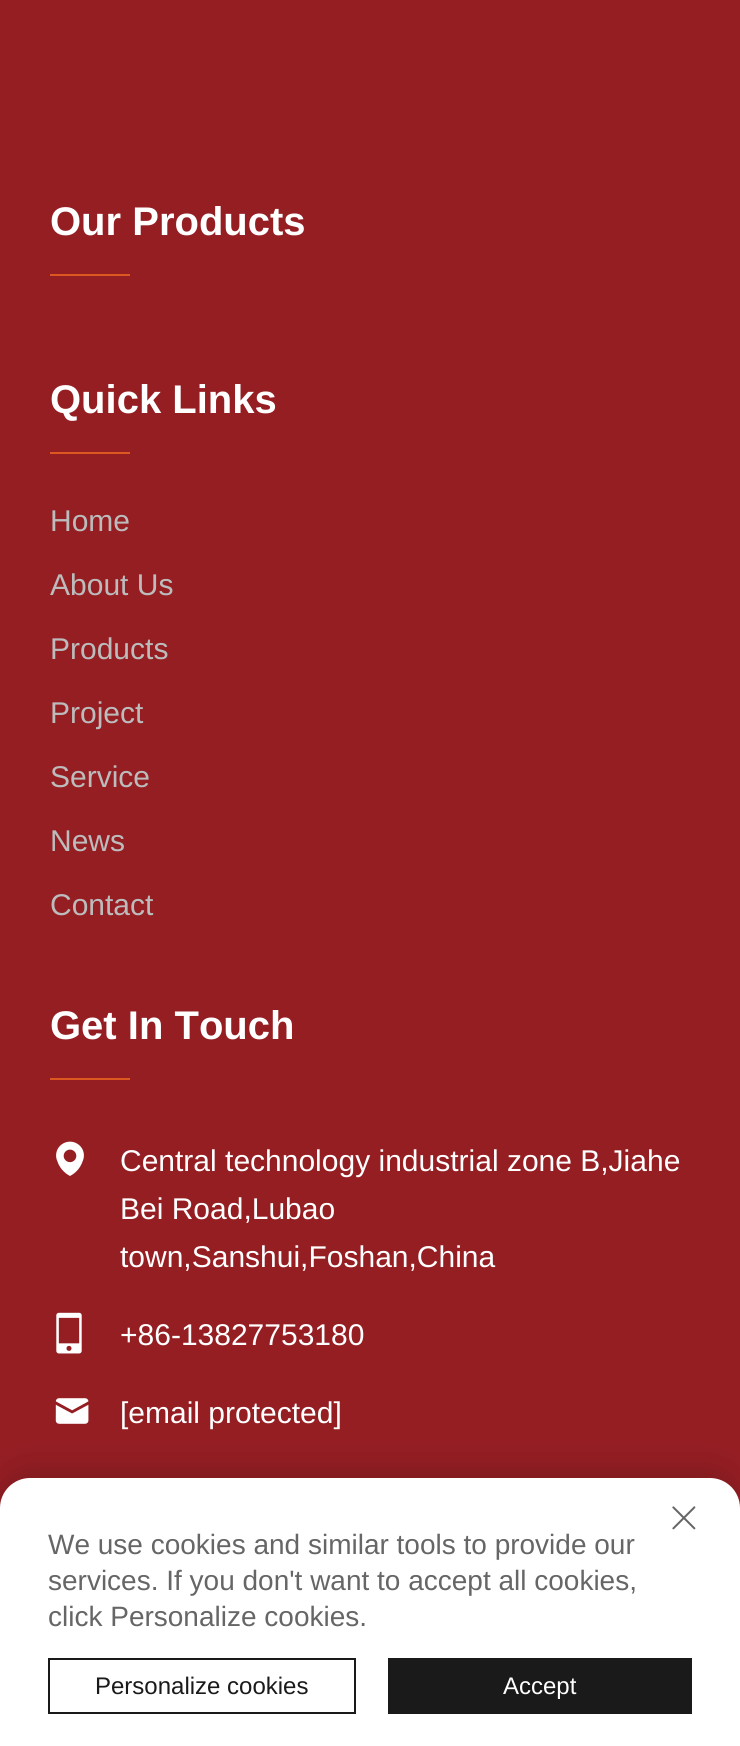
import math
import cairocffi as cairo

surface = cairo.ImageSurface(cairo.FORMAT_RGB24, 740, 1746)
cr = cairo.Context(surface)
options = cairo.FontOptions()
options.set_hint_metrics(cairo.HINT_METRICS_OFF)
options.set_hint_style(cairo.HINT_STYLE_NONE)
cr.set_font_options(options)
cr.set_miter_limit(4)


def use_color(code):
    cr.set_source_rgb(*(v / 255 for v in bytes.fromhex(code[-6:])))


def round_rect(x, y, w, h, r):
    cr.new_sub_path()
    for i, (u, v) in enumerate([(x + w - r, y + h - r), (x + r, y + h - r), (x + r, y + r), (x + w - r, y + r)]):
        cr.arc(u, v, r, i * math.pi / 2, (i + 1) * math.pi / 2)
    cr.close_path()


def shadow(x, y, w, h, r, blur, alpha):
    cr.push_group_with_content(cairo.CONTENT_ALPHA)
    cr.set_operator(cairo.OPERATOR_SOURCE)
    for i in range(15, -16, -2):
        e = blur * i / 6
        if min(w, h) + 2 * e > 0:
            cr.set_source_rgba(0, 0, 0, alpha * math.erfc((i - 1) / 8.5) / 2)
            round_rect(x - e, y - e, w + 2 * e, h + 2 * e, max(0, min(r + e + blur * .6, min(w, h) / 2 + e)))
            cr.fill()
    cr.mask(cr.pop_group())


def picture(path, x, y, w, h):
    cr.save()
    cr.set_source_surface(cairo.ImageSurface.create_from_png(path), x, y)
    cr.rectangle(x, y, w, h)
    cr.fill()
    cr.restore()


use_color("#951e23")
cr.paint()
cr.select_font_face("Liberation Sans", cairo.FONT_SLANT_NORMAL, cairo.FONT_WEIGHT_BOLD)
cr.set_font_size(40)
use_color("#ffffff")
cr.move_to(50, 235)
cr.show_text("Our Products")
use_color("#dc5820")
cr.rectangle(50, 274, 80, 2)
cr.fill()
use_color("#ffffff")
cr.move_to(50, 413)
cr.show_text("Quick Links")
use_color("#dc5820")
cr.rectangle(50, 452, 80, 2)
cr.fill()
cr.select_font_face("Liberation Sans")
cr.set_font_size(30)
use_color("#bcbcbc")
cr.move_to(50, 531)
cr.show_text("Home")
cr.move_to(50, 595)
cr.show_text("About Us")
cr.move_to(50, 659)
cr.show_text("Products")
cr.move_to(50, 723)
cr.show_text("Project")
cr.move_to(50, 787)
cr.show_text("Service")
cr.move_to(50, 851)
cr.show_text("News")
cr.move_to(50, 915)
cr.show_text("Contact")
cr.select_font_face("Liberation Sans", cairo.FONT_SLANT_NORMAL, cairo.FONT_WEIGHT_BOLD)
cr.set_font_size(40)
use_color("#ffffff")
cr.move_to(50, 1039)
cr.show_text("Get In Touch")
use_color("#dc5820")
cr.rectangle(50, 1078, 80, 2)
cr.fill()
picture("img1.png", 56, 1141, 28, 35)
cr.select_font_face("Liberation Sans")
cr.set_font_size(30)
use_color("#ffffff")
cr.move_to(120, 1171)
cr.show_text("Central technology industrial zone B,Jiahe")
cr.move_to(120, 1219)
cr.show_text("Bei Road,Lubao")
cr.move_to(120, 1267)
cr.show_text("town,Sanshui,Foshan,China")
picture("img2.png", 56, 1312, 26, 42)
cr.move_to(120, 1345)
cr.show_text("+86-13827753180")
picture("img3.png", 55, 1398, 34, 26)
cr.move_to(120, 1423)
cr.show_text("[email protected]")
use_color("#000000")
shadow(0, 1470, 740, 268, 30, 16, 0.16)
use_color("#ffffff")
cr.new_path()
cr.move_to(30, 1478)
cr.line_to(710, 1478)
cr.curve_to(726.5, 1478, 740, 1491.5, 740, 1508)
cr.line_to(740, 1746)
cr.line_to(0, 1746)
cr.line_to(0, 1508)
cr.curve_to(0, 1491.5, 13.5, 1478, 30, 1478)
cr.close_path()
cr.fill()
picture("img4.png", 672, 1506, 24, 24)
cr.set_font_size(28)
use_color("#666666")
cr.move_to(48, 1554)
cr.show_text("We use cookies and similar tools to provide our")
cr.move_to(48, 1590)
cr.show_text("services. If you don't want to accept all cookies,")
cr.move_to(48, 1626)
cr.show_text("click Personalize cookies.")
cr.rectangle(49, 1659, 306, 54)
use_color("#1a1a1a")
cr.stroke()
cr.set_font_size(24)
cr.move_to(95, 1694)
cr.show_text("Personalize cookies")
cr.rectangle(388, 1658, 304, 56)
cr.fill()
use_color("#ffffff")
cr.move_to(503, 1694)
cr.show_text("Accept")
surface.write_to_png("result.png")
